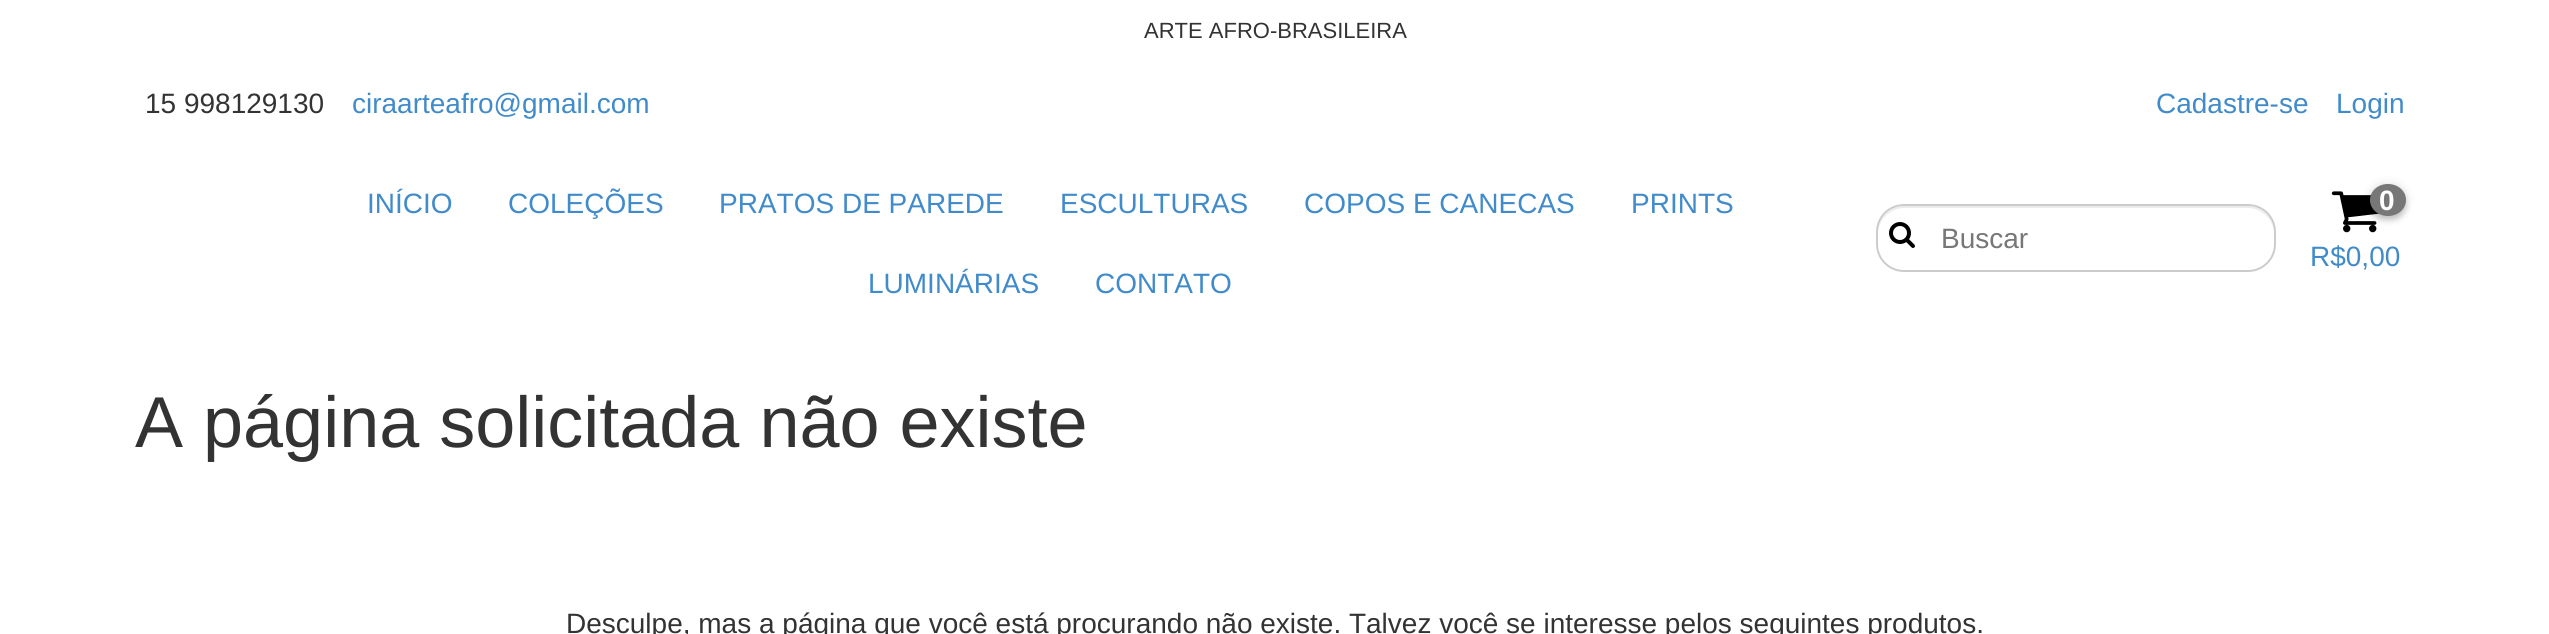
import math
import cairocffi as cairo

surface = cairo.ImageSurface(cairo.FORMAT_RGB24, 2549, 634)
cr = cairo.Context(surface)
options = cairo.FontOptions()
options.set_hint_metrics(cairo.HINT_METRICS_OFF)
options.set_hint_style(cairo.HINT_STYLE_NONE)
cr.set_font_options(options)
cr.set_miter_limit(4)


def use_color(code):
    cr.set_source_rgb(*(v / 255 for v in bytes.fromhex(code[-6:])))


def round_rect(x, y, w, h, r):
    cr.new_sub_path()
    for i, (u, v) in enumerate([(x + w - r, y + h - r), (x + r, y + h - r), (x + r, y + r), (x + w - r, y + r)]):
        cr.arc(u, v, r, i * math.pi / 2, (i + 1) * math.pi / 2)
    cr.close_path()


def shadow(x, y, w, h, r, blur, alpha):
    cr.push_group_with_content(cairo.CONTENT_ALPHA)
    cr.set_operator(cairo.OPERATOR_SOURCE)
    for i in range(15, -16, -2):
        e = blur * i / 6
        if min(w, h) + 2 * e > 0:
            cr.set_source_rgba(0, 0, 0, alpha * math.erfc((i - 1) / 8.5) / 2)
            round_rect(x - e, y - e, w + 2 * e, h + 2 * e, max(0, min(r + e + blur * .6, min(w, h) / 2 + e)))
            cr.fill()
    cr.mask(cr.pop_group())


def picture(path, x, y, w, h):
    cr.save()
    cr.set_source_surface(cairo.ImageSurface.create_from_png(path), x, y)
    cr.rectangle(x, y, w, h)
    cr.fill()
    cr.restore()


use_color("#ffffff")
cr.paint()
cr.select_font_face("Liberation Sans")
cr.set_font_size(22)
use_color("#333333")
cr.move_to(1144, 38)
cr.show_text("ARTE AFRO-BRASILEIRA")
cr.set_font_size(28)
cr.move_to(145, 113)
cr.show_text("15 998129130")
use_color("#428bca")
cr.move_to(352, 113)
cr.show_text("ciraarteafro@gmail.com")
cr.move_to(2156, 113)
cr.show_text("Cadastre-se")
cr.move_to(2336, 113)
cr.show_text("Login")
cr.move_to(367, 213)
cr.show_text("INÍCIO")
cr.move_to(508, 213)
cr.show_text("COLEÇÕES")
cr.move_to(719, 213)
cr.show_text("PRATOS DE PAREDE")
cr.move_to(1060, 213)
cr.show_text("ESCULTURAS")
cr.move_to(1304, 213)
cr.show_text("COPOS E CANECAS")
cr.move_to(1631, 213)
cr.show_text("PRINTS")
cr.move_to(868, 293)
cr.show_text("LUMINÁRIAS")
cr.move_to(1095, 293)
cr.show_text("CONTATO")
use_color("#ececec")
cr.new_path()
cr.move_to(1904, 208)
cr.line_to(2248, 208)
cr.curve_to(2262, 208, 2274, 220, 2274, 234)
cr.line_to(2274, 232)
cr.curve_to(2274, 218, 2262, 206, 2248, 206)
cr.line_to(1904, 206)
cr.curve_to(1890, 206, 1878, 218, 1878, 232)
cr.line_to(1878, 234)
cr.curve_to(1878, 220, 1890, 208, 1904, 208)
cr.close_path()
cr.fill()
round_rect(1877, 205, 398, 66, 27)
use_color("#cccccc")
cr.stroke()
picture("img1.png", 1889, 222, 26, 26)
use_color("#777777")
cr.move_to(1941, 248)
cr.show_text("Buscar")
picture("img2.png", 2331, 191, 49, 42)
use_color("#000000")
shadow(2370, 188, 36, 32, 16, 3, 0.2)
shadow(2370, 184, 36, 32, 16, 5, 0.1)
use_color("#777777")
cr.new_path()
cr.move_to(2388, 184)
cr.curve_to(2398, 184, 2406, 191, 2406, 200)
cr.curve_to(2406, 209, 2398, 216, 2388, 216)
cr.curve_to(2378, 216, 2370, 209, 2370, 200)
cr.curve_to(2370, 191, 2378, 184, 2388, 184)
cr.close_path()
cr.fill()
cr.select_font_face("Liberation Sans", cairo.FONT_SLANT_NORMAL, cairo.FONT_WEIGHT_BOLD)
use_color("#ffffff")
cr.move_to(2379, 210)
cr.show_text("0")
cr.select_font_face("Liberation Sans")
use_color("#428bca")
cr.move_to(2310, 266)
cr.show_text("R$0,00")
cr.set_font_size(72)
use_color("#333333")
cr.move_to(135, 447)
cr.show_text("A página solicitada não existe")
cr.set_font_size(28)
cr.move_to(566, 633)
cr.show_text("Desculpe, mas a página que você está procurando não existe. Talvez você se interesse pelos seguintes produtos.")
surface.write_to_png("result.png")
